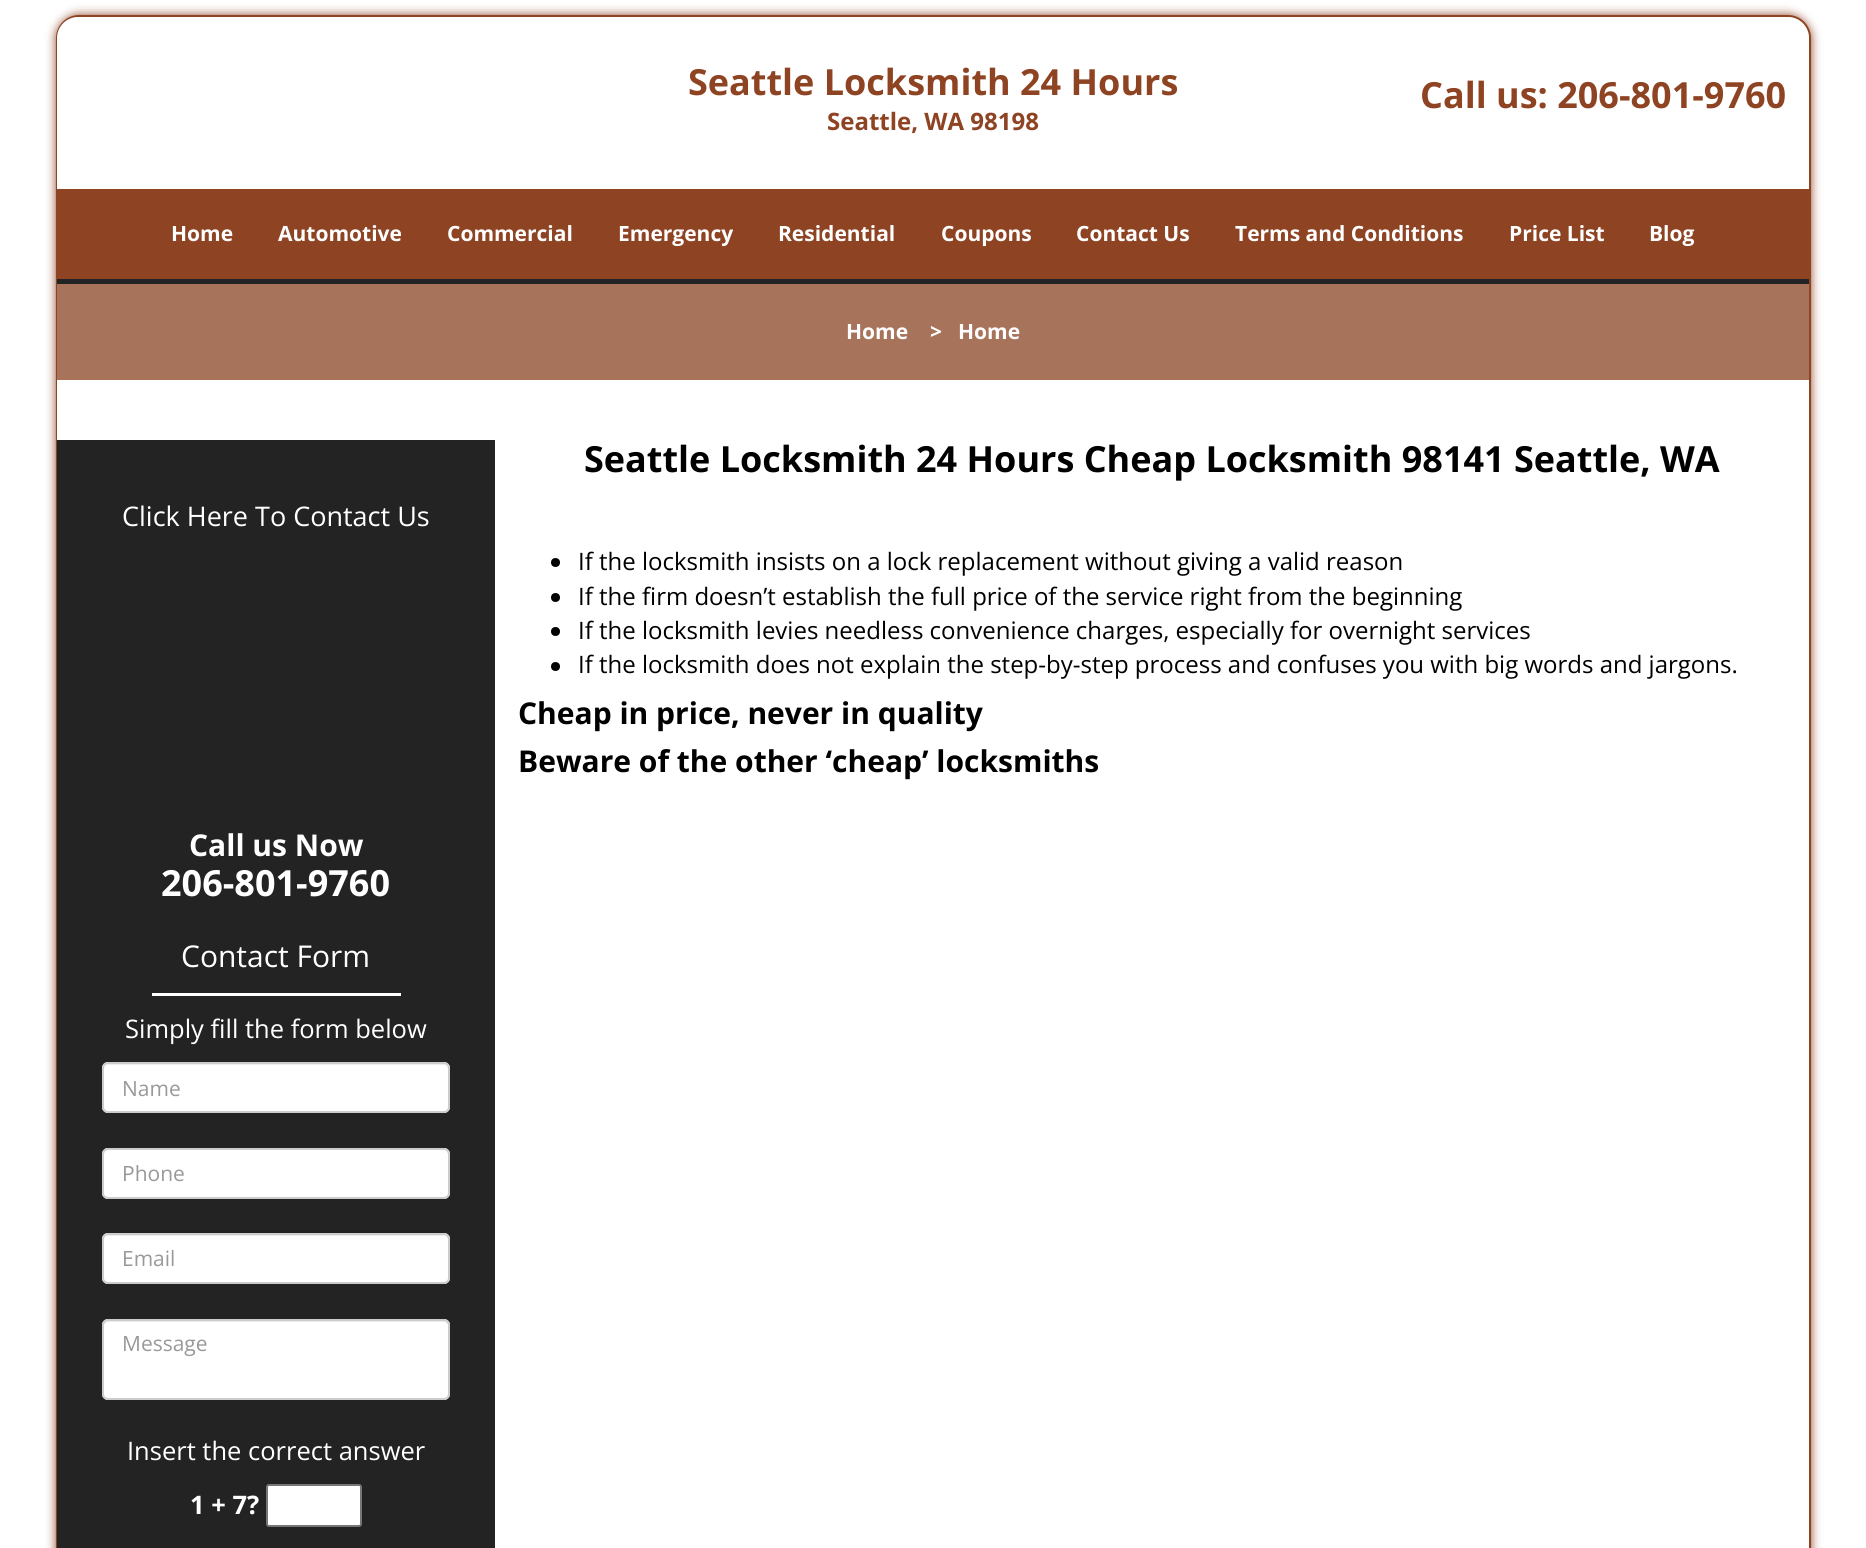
import math
import cairocffi as cairo

surface = cairo.ImageSurface(cairo.FORMAT_RGB24, 1866, 1548)
cr = cairo.Context(surface)
options = cairo.FontOptions()
options.set_hint_metrics(cairo.HINT_METRICS_OFF)
options.set_hint_style(cairo.HINT_STYLE_NONE)
cr.set_font_options(options)
cr.set_miter_limit(4)


def use_color(code):
    cr.set_source_rgb(*(v / 255 for v in bytes.fromhex(code[-6:])))


def round_rect(x, y, w, h, r):
    cr.new_sub_path()
    for i, (u, v) in enumerate([(x + w - r, y + h - r), (x + r, y + h - r), (x + r, y + r), (x + w - r, y + r)]):
        cr.arc(u, v, r, i * math.pi / 2, (i + 1) * math.pi / 2)
    cr.close_path()


def shadow(x, y, w, h, r, blur, alpha):
    cr.push_group_with_content(cairo.CONTENT_ALPHA)
    cr.set_operator(cairo.OPERATOR_SOURCE)
    for i in range(15, -16, -2):
        e = blur * i / 6
        if min(w, h) + 2 * e > 0:
            cr.set_source_rgba(0, 0, 0, alpha * math.erfc((i - 1) / 8.5) / 2)
            round_rect(x - e, y - e, w + 2 * e, h + 2 * e, max(0, min(r + e + blur * .6, min(w, h) / 2 + e)))
            cr.fill()
    cr.mask(cr.pop_group())


use_color("#ffffff")
cr.paint()
use_color("#8e4323")
shadow(56, 15, 1755, 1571, 23, 5, 1)
cr.new_path()
cr.move_to(79, 16)
cr.line_to(1788, 16)
cr.curve_to(1800, 16, 1810, 26, 1810, 38)
cr.line_to(1810, 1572)
cr.line_to(57, 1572)
cr.line_to(57, 38)
cr.curve_to(57, 26, 67, 16, 79, 16)
cr.close_path()
use_color("#8e4323")
cr.stroke()
use_color("#ffffff")
cr.new_path()
cr.move_to(78, 17)
cr.line_to(1788, 17)
cr.curve_to(1799.5, 17, 1809, 26.5, 1809, 38)
cr.line_to(1809, 189)
cr.line_to(57, 189)
cr.line_to(57, 38)
cr.curve_to(57, 26.5, 66.5, 17, 78, 17)
cr.close_path()
cr.fill()
cr.select_font_face("Open Sans", cairo.FONT_SLANT_NORMAL, cairo.FONT_WEIGHT_BOLD)
cr.set_font_size(36)
use_color("#8e4323")
cr.move_to(688, 95)
cr.show_text("Seattle Locksmith 24 Hours")
cr.set_font_size(24)
cr.move_to(827, 130)
cr.show_text("Seattle, WA 98198")
cr.set_font_size(36)
cr.move_to(1420, 108)
cr.show_text("Call us: 206-801-9760")
cr.rectangle(58, 189, 1751, 90)
cr.fill()
use_color("#222325")
cr.rectangle(57, 279, 1752, 5)
cr.fill()
cr.set_font_size(21)
use_color("#ffffff")
cr.move_to(171, 241)
cr.show_text("Home")
cr.move_to(278, 241)
cr.show_text("Automotive")
cr.move_to(447, 241)
cr.show_text("Commercial")
cr.move_to(618, 241)
cr.show_text("Emergency")
cr.move_to(778, 241)
cr.show_text("Residential")
cr.move_to(941, 241)
cr.show_text("Coupons")
cr.move_to(1076, 241)
cr.show_text("Contact Us")
cr.move_to(1235, 241)
cr.show_text("Terms and Conditions")
cr.move_to(1509, 241)
cr.show_text("Price List")
cr.move_to(1649, 241)
cr.show_text("Blog")
use_color("#a8735b")
cr.rectangle(57, 284, 1752, 96)
cr.fill()
use_color("#ffffff")
cr.move_to(846, 339)
cr.show_text("Home")
cr.move_to(930, 339)
cr.show_text(">")
cr.move_to(958, 339)
cr.show_text("Home")
cr.rectangle(57, 380, 1752, 1168)
cr.fill()
use_color("#232323")
cr.rectangle(57, 440, 438, 1108)
cr.fill()
cr.select_font_face("Open Sans")
cr.set_font_size(27)
use_color("#ffffff")
cr.move_to(122, 526)
cr.show_text("Click Here To Contact Us")
cr.select_font_face("Open Sans", cairo.FONT_SLANT_NORMAL, cairo.FONT_WEIGHT_BOLD)
cr.set_font_size(30)
cr.move_to(189, 856)
cr.show_text("Call us Now")
cr.set_font_size(36)
cr.move_to(161, 896)
cr.show_text("206-801-9760")
cr.rectangle(152, 993, 249, 3)
cr.fill()
cr.select_font_face("Open Sans")
cr.set_font_size(30)
cr.move_to(181, 967)
cr.show_text("Contact Form")
cr.set_font_size(25.5)
cr.move_to(125, 1038)
cr.show_text("Simply fill the form below")
round_rect(102, 1062, 348, 51, 6)
cr.fill()
use_color("#ececec")
cr.new_path()
cr.move_to(108, 1065)
cr.line_to(444, 1065)
cr.curve_to(446, 1065, 448, 1067, 448, 1070)
cr.line_to(448, 1108)
cr.line_to(447, 1111)
cr.curve_to(448, 1110, 449, 1108, 449, 1107)
cr.line_to(449, 1069)
cr.curve_to(449, 1066, 447, 1064, 444, 1064)
cr.line_to(109, 1064)
cr.curve_to(106, 1064, 104, 1066, 104, 1069)
cr.line_to(104, 1070)
cr.curve_to(104, 1067, 106, 1065, 108, 1065)
cr.close_path()
cr.fill()
round_rect(103, 1063, 346, 49, 5)
use_color("#cccccc")
cr.stroke()
cr.set_font_size(21)
use_color("#999999")
cr.move_to(122, 1096)
cr.show_text("Name")
use_color("#ffffff")
round_rect(102, 1148, 348, 51, 6)
cr.fill()
use_color("#ececec")
cr.new_path()
cr.move_to(108, 1150)
cr.line_to(444, 1150)
cr.curve_to(446, 1150, 448, 1153, 448, 1155)
cr.line_to(448, 1195)
cr.curve_to(449, 1194, 449, 1193, 449, 1192)
cr.line_to(449, 1154)
cr.curve_to(449, 1151, 447, 1149, 444, 1149)
cr.line_to(109, 1149)
cr.curve_to(106, 1149, 104, 1151, 104, 1154)
cr.line_to(104, 1155)
cr.curve_to(104, 1153, 106, 1150, 108, 1150)
cr.close_path()
cr.fill()
round_rect(103, 1149, 346, 49, 5)
use_color("#cccccc")
cr.stroke()
use_color("#999999")
cr.move_to(122, 1181)
cr.show_text("Phone")
use_color("#ffffff")
round_rect(102, 1233, 348, 51, 6)
cr.fill()
use_color("#ececec")
cr.new_path()
cr.move_to(108, 1236)
cr.line_to(444, 1236)
cr.curve_to(446, 1236, 448, 1238, 448, 1240)
cr.line_to(448, 1281)
cr.curve_to(449, 1280, 449, 1279, 449, 1278)
cr.line_to(449, 1240)
cr.curve_to(449, 1237, 447, 1235, 444, 1235)
cr.line_to(109, 1235)
cr.curve_to(106, 1235, 104, 1237, 104, 1240)
cr.curve_to(104, 1238, 106, 1236, 108, 1236)
cr.close_path()
cr.fill()
round_rect(103, 1234, 346, 49, 5)
use_color("#cccccc")
cr.stroke()
use_color("#999999")
cr.move_to(122, 1266)
cr.show_text("Email")
use_color("#ffffff")
round_rect(102, 1319, 348, 81, 6)
cr.fill()
use_color("#ececec")
cr.new_path()
cr.move_to(108, 1322)
cr.line_to(444, 1322)
cr.curve_to(446, 1322, 448, 1324, 448, 1326)
cr.line_to(448, 1396)
cr.curve_to(449, 1395, 449, 1394, 449, 1393)
cr.line_to(449, 1325)
cr.curve_to(449, 1322, 447, 1320, 444, 1320)
cr.line_to(109, 1320)
cr.curve_to(106, 1320, 104, 1322, 104, 1325)
cr.line_to(104, 1326)
cr.curve_to(104, 1324, 106, 1322, 108, 1322)
cr.close_path()
cr.fill()
round_rect(103, 1320, 346, 79, 5)
use_color("#cccccc")
cr.stroke()
use_color("#999999")
cr.move_to(122, 1351)
cr.show_text("Message")
cr.set_font_size(25.5)
use_color("#ffffff")
cr.move_to(127, 1460)
cr.show_text("Insert the correct answer")
cr.select_font_face("Open Sans", cairo.FONT_SLANT_NORMAL, cairo.FONT_WEIGHT_BOLD)
cr.move_to(190, 1514)
cr.show_text("1 + 7?")
round_rect(267, 1485, 94, 41, 2)
cr.fill_preserve()
use_color("#767676")
cr.stroke()
cr.set_font_size(36)
use_color("#000000")
cr.move_to(584, 472)
cr.show_text("Seattle Locksmith 24 Hours Cheap Locksmith 98141 Seattle, WA")
cr.new_path()
cr.arc(555.5, 562.5, 4.5, 0, 2 * math.pi)
cr.fill()
cr.select_font_face("Open Sans")
cr.set_font_size(24)
cr.move_to(578, 570)
cr.show_text("If the locksmith insists on a lock replacement without giving a valid reason")
cr.new_path()
cr.arc(555.5, 597.5, 4.5, 0, 2 * math.pi)
cr.fill()
cr.move_to(578, 605)
cr.show_text("If the firm doesn’t establish the full price of the service right from the beginning")
cr.new_path()
cr.arc(555.5, 631.5, 4.5, 0, 2 * math.pi)
cr.fill()
cr.move_to(578, 639)
cr.show_text("If the locksmith levies needless convenience charges, especially for overnight services")
cr.new_path()
cr.arc(555.5, 666.5, 4.5, 0, 2 * math.pi)
cr.fill()
cr.move_to(578, 673)
cr.show_text("If the locksmith does not explain the step-by-step process and confuses you with big words and jargons.")
cr.select_font_face("Open Sans", cairo.FONT_SLANT_NORMAL, cairo.FONT_WEIGHT_BOLD)
cr.set_font_size(30)
cr.move_to(518, 724)
cr.show_text("Cheap in price, never in quality")
cr.move_to(518, 772)
cr.show_text("Beware of the other ‘cheap’ locksmiths")
surface.write_to_png("result.png")
